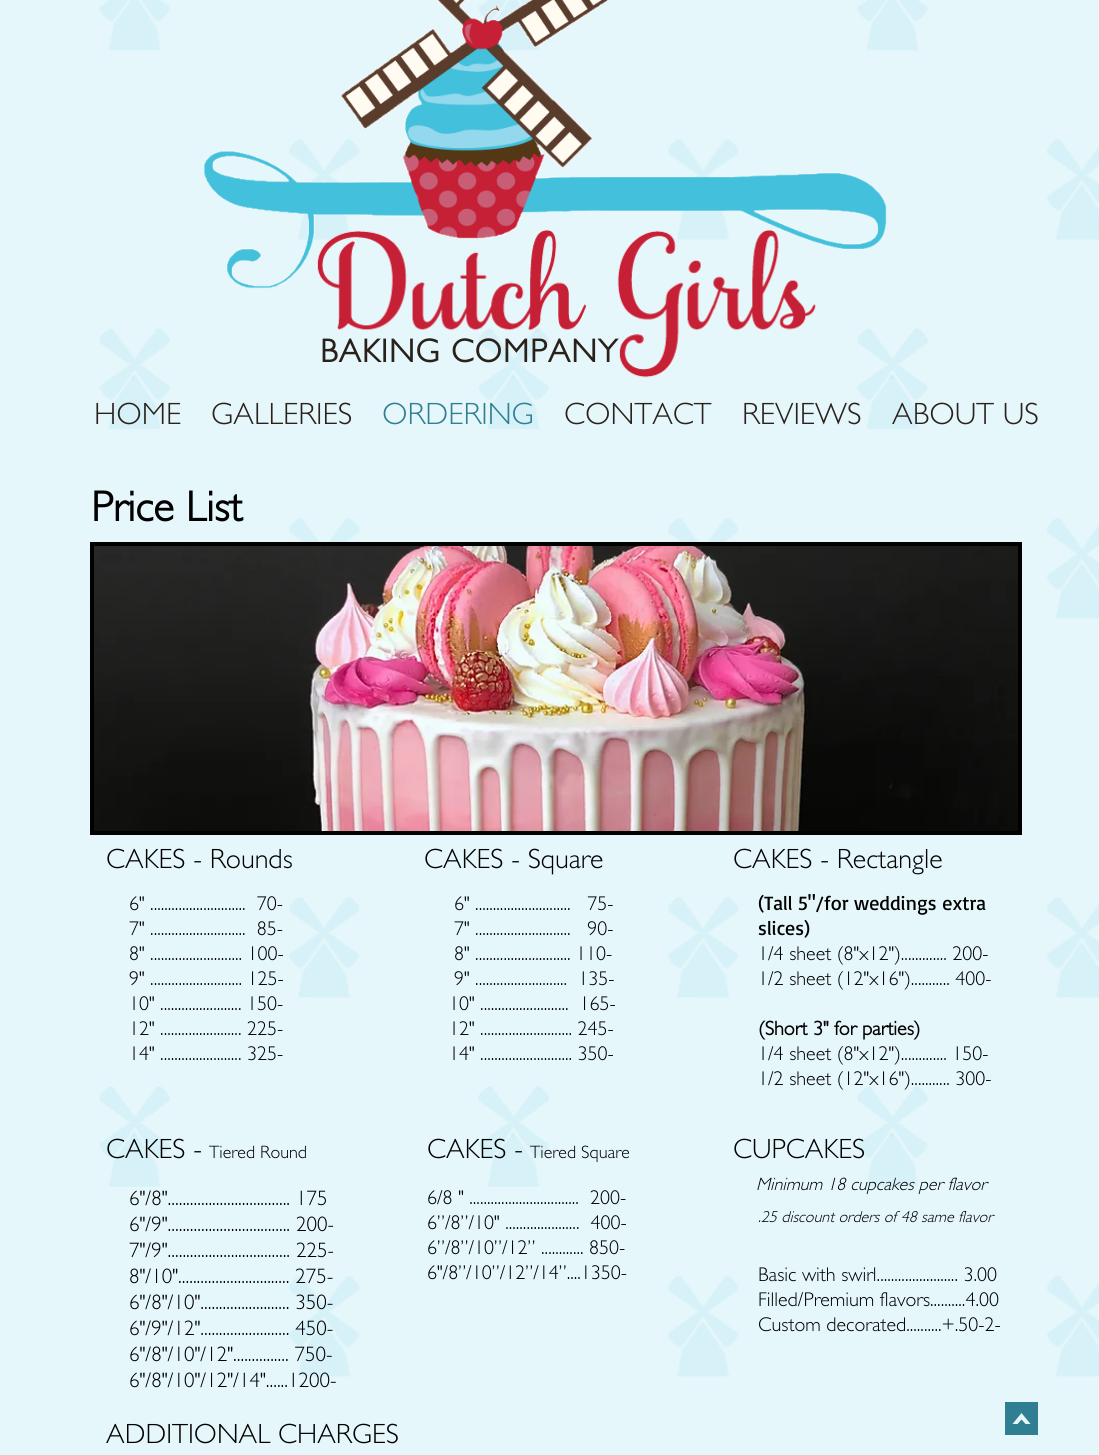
import math
import cairocffi as cairo

surface = cairo.ImageSurface(cairo.FORMAT_RGB24, 1099, 1455)
cr = cairo.Context(surface)
options = cairo.FontOptions()
options.set_hint_metrics(cairo.HINT_METRICS_OFF)
options.set_hint_style(cairo.HINT_STYLE_NONE)
cr.set_font_options(options)
cr.set_miter_limit(4)


def use_color(code):
    cr.set_source_rgb(*(v / 255 for v in bytes.fromhex(code[-6:])))


def spaced_text(x, y, s, letter, word):
    cr.move_to(x, y)
    for ch in s:
        cr.show_text(ch)
        cr.rel_move_to(letter + word * (ch == ' '), 0)


def picture(path, x, y, w, h):
    cr.save()
    cr.set_source_surface(cairo.ImageSurface.create_from_png(path), x, y)
    cr.rectangle(x, y, w, h)
    cr.fill()
    cr.restore()


use_color("#ffffff")
cr.paint()
picture("img1.png", 0, 0, 1099, 1455)
picture("img2.png", 203, 0, 684, 289)
cr.select_font_face("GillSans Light", cairo.FONT_SLANT_NORMAL, cairo.FONT_WEIGHT_BOLD)
cr.set_font_size(33)
use_color("#2a211b")
spaced_text(320, 362, "BAKING COMPANY", 1.25, 0)
picture("img3.png", 317, 229, 499, 149)
cr.select_font_face("GillSans Light Light")
cr.set_font_size(31)
cr.move_to(94, 424)
cr.show_text("HOME")
cr.move_to(211, 424)
cr.show_text("GALLERIES")
use_color("#2f7e92")
cr.move_to(382, 424)
cr.show_text("ORDERING")
use_color("#2a211b")
cr.move_to(564, 424)
cr.show_text("CONTACT")
cr.move_to(742, 424)
cr.show_text("REVIEWS")
cr.move_to(892, 424)
cr.show_text("ABOUT US")
cr.select_font_face("GillSans Light", cairo.FONT_SLANT_NORMAL, cairo.FONT_WEIGHT_BOLD)
cr.set_font_size(43)
use_color("#000000")
cr.move_to(91, 521)
cr.show_text("Price List")
cr.rectangle(90, 542, 932, 293)
cr.fill()
picture("img4.png", 94, 546, 924, 285)
cr.select_font_face("GillSans Light Light")
cr.set_font_size(28)
cr.move_to(106, 868)
cr.show_text("CAKES - Rounds")
cr.move_to(424, 868)
cr.show_text("CAKES - Square")
cr.move_to(733, 868)
cr.show_text("CAKES - Rectangle")
cr.set_font_size(20)
cr.move_to(129, 910)
cr.show_text("6\" ...........................  70-")
cr.move_to(129, 935)
cr.show_text("7\" ...........................  85-")
cr.move_to(129, 960)
cr.show_text("8\" .......................... 100-")
cr.move_to(129, 985)
cr.show_text("9\" .......................... 125-")
cr.move_to(129, 1010)
cr.show_text("10\" ....................... 150-")
cr.move_to(129, 1035)
cr.show_text("12\" ....................... 225-")
cr.move_to(129, 1060)
cr.show_text("14\" ....................... 325-")
cr.move_to(454, 910)
cr.show_text("6\" ...........................   75-")
cr.move_to(454, 935)
cr.show_text("7\" ...........................   90-")
cr.move_to(454, 960)
cr.show_text("8\" ........................... 110-")
cr.move_to(454, 985)
cr.show_text("9\" ..........................  135-")
cr.move_to(449, 1010)
cr.show_text("10\" .........................  165-")
cr.move_to(449, 1035)
cr.show_text("12\" .......................... 245-")
cr.move_to(449, 1060)
cr.show_text("14\" .......................... 350-")
cr.select_font_face("Basic")
cr.move_to(758, 910)
cr.show_text("(Tall 5\"/for weddings extra")
cr.move_to(758, 935)
cr.show_text("slices)")
cr.select_font_face("GillSans Light Light")
cr.move_to(758, 960)
cr.show_text("1/4 sheet (8\"x12\")............. 200-")
cr.move_to(758, 985)
cr.show_text("1/2 sheet (12\"x16\")........... 400-")
cr.select_font_face("GillSans Light", cairo.FONT_SLANT_NORMAL, cairo.FONT_WEIGHT_BOLD)
cr.move_to(758, 1035)
cr.show_text("(Short 3\" for parties)")
cr.select_font_face("GillSans Light Light")
cr.move_to(758, 1060)
cr.show_text("1/4 sheet (8\"x12\")............. 150-")
cr.move_to(758, 1085)
cr.show_text("1/2 sheet (12\"x16\")........... 300-")
cr.set_font_size(28)
cr.move_to(106, 1158)
cr.show_text("CAKES -")
cr.set_font_size(18)
cr.move_to(209, 1158)
cr.show_text("Tiered Round")
cr.set_font_size(28)
cr.move_to(427, 1158)
cr.show_text("CAKES -")
cr.set_font_size(18)
cr.move_to(530, 1158)
cr.show_text("Tiered Square")
cr.set_font_size(28)
cr.move_to(733, 1158)
cr.show_text("CUPCAKES")
cr.select_font_face("GillSans Light Light", cairo.FONT_SLANT_ITALIC)
cr.set_font_size(18)
cr.move_to(756, 1190)
cr.show_text("Minimum 18 cupcakes per flavor")
cr.set_font_size(16)
cr.move_to(758, 1222)
cr.show_text(".25 discount orders of 48 same flavor")
cr.select_font_face("GillSans Light Light")
cr.set_font_size(21)
cr.move_to(129, 1205)
cr.show_text("6\"/8\"................................. 175")
cr.move_to(129, 1231)
cr.show_text("6\"/9\"................................. 200-")
cr.move_to(129, 1257)
cr.show_text("7\"/9\"................................. 225-")
cr.move_to(129, 1283)
cr.show_text("8\"/10\".............................. 275-")
cr.move_to(129, 1309)
cr.show_text("6\"/8\"/10\"........................ 350-")
cr.move_to(129, 1335)
cr.show_text("6\"/9\"/12\"........................ 450-")
cr.move_to(129, 1361)
cr.show_text("6\"/8\"/10\"/12\"............... 750-")
cr.move_to(129, 1387)
cr.show_text("6\"/8\"/10\"/12\"/14\"......1200-")
cr.set_font_size(20)
cr.move_to(427, 1204)
cr.show_text("6/8 \" ...............................  200-")
cr.move_to(427, 1229)
cr.show_text("6”/8”/10\" .....................  400-")
cr.move_to(427, 1254)
cr.show_text("6”/8”/10”/12” ............ 850-")
cr.move_to(427, 1279)
cr.show_text("6\"/8”/10”/12”/14”....1350-")
cr.move_to(758, 1281)
cr.show_text("Basic with swirl....................... 3.00")
cr.move_to(758, 1306)
cr.show_text("Filled/Premium flavors..........4.00")
cr.move_to(758, 1331)
cr.show_text("Custom decorated..........+.50-2-")
cr.set_font_size(28)
cr.move_to(106, 1443)
cr.show_text("ADDITIONAL CHARGES")
use_color("#2f7e92")
cr.new_path()
cr.move_to(1005, 1402)
cr.line_to(1005, 1435)
cr.line_to(1038, 1435)
cr.line_to(1038, 1402)
cr.close_path()
cr.move_to(1025.5, 1424)
cr.line_to(1021.5, 1419.5)
cr.line_to(1017.5, 1424)
cr.line_to(1012.5, 1424)
cr.line_to(1021.5, 1413)
cr.line_to(1030.5, 1424)
cr.close_path()
cr.fill()
surface.write_to_png("result.png")
